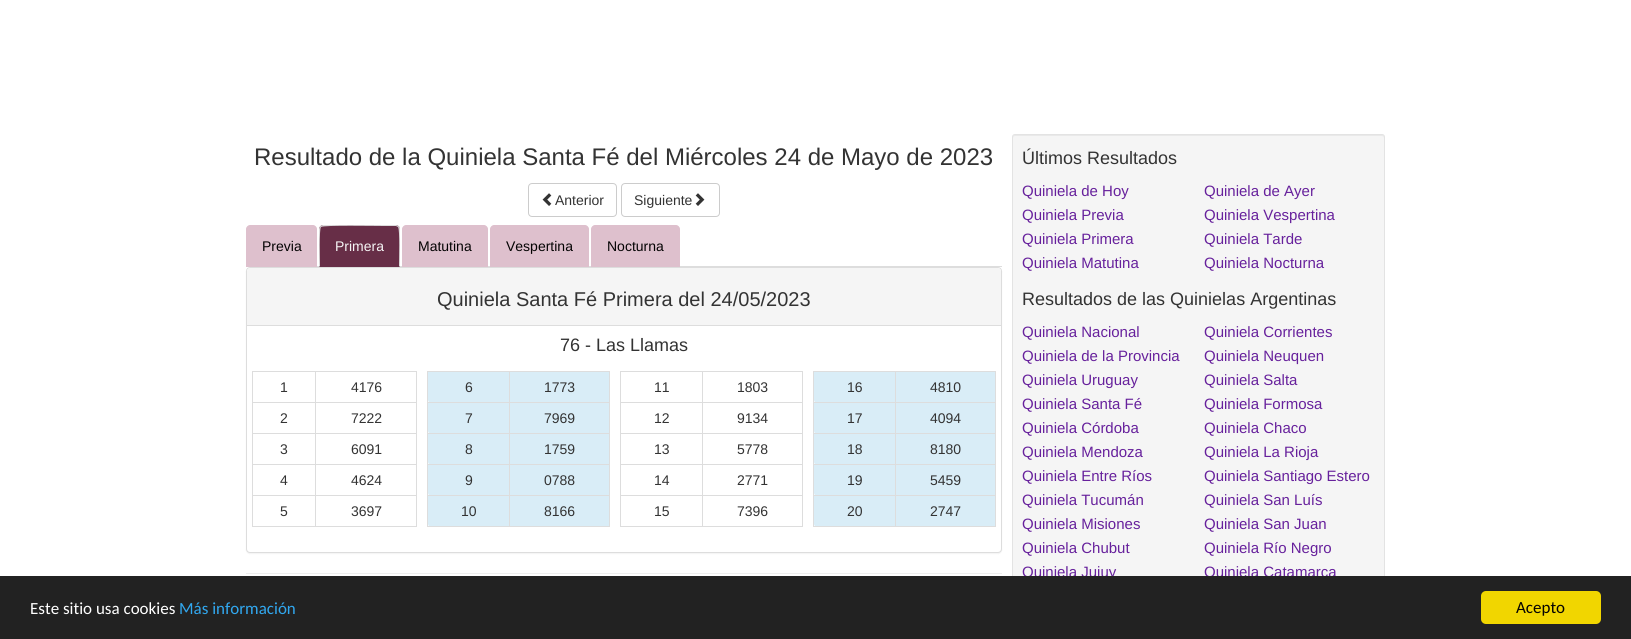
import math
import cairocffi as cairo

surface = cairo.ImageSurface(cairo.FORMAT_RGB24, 1631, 639)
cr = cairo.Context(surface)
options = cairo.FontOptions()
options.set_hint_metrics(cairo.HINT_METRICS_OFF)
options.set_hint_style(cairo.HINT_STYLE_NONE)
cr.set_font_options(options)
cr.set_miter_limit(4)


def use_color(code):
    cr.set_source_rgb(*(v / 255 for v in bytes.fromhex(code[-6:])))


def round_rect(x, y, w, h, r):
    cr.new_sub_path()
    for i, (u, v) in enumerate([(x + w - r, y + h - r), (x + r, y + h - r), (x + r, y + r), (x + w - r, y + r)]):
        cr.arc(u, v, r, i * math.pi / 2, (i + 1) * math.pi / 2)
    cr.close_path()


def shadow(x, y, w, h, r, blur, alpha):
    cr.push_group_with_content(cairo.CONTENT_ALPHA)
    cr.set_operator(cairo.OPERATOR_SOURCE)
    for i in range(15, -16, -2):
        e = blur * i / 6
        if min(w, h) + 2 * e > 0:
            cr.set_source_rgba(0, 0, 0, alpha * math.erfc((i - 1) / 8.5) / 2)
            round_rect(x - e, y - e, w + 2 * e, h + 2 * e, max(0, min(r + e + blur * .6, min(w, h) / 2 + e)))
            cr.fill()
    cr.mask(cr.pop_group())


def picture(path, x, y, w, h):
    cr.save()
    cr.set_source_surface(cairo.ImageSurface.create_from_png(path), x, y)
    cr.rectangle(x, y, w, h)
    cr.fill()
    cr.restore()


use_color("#ffffff")
cr.paint()
cr.select_font_face("Liberation Sans")
cr.set_font_size(24)
use_color("#333333")
cr.move_to(254, 165)
cr.show_text("Resultado de la Quiniela Santa Fé del Miércoles 24 de Mayo de 2023")
round_rect(528.5, 183.5, 88, 33, 3.5)
use_color("#cccccc")
cr.set_line_width(1)
cr.stroke()
picture("img1.png", 542, 193, 10, 13)
cr.set_font_size(14)
use_color("#333333")
cr.move_to(555, 205)
cr.show_text("Anterior")
round_rect(621.5, 183.5, 98, 33, 3.5)
use_color("#cccccc")
cr.stroke()
use_color("#333333")
cr.move_to(634, 205)
cr.show_text("Siguiente")
picture("img2.png", 695, 193, 10, 13)
use_color("#dddddd")
cr.rectangle(317, 266, 685, 1)
cr.fill()
use_color("#000000")
shadow(246, 268, 756, 286, 4, 0.5, 0.05)
use_color("#dec0cd")
cr.new_path()
cr.move_to(250, 225)
cr.line_to(313, 225)
cr.curve_to(315, 225, 317, 227, 317, 229)
cr.line_to(317, 267)
cr.line_to(246, 267)
cr.line_to(246, 229)
cr.curve_to(246, 227, 248, 225, 250, 225)
cr.close_path()
cr.fill()
use_color("#040303")
cr.move_to(262, 251)
cr.show_text("Previa")
use_color("#672e47")
cr.new_path()
cr.move_to(323, 225)
cr.line_to(396, 225)
cr.curve_to(398, 225, 400, 227, 400, 229)
cr.line_to(400, 267)
cr.line_to(319, 267)
cr.line_to(319, 229)
cr.curve_to(319, 227, 321, 225, 323, 225)
cr.close_path()
cr.fill()
use_color("#dddddd")
cr.new_path()
cr.move_to(323, 225)
cr.line_to(320, 226)
cr.line_to(321, 227)
cr.curve_to(323, 225, 377, 226, 384, 226)
cr.line_to(396, 226)
cr.line_to(398, 227)
cr.line_to(399, 226)
cr.line_to(396, 225)
cr.close_path()
cr.fill()
cr.new_path()
cr.move_to(400, 267)
cr.line_to(400, 229)
cr.curve_to(400, 228, 400, 227, 399, 226)
cr.line_to(398, 227)
cr.curve_to(400, 229, 399, 261, 399, 266)
cr.close_path()
cr.fill()
cr.new_path()
cr.move_to(319, 267)
cr.line_to(320, 266)
cr.curve_to(320, 261, 319, 229, 321, 227)
cr.line_to(320, 226)
cr.line_to(319, 229)
cr.close_path()
cr.fill()
use_color("#f5f5f5")
cr.move_to(335, 251)
cr.show_text("Primera")
use_color("#dec0cd")
cr.new_path()
cr.move_to(406, 225)
cr.line_to(484, 225)
cr.curve_to(486, 225, 488, 227, 488, 229)
cr.line_to(488, 267)
cr.line_to(402, 267)
cr.line_to(402, 229)
cr.curve_to(402, 227, 404, 225, 406, 225)
cr.close_path()
cr.fill()
use_color("#040303")
cr.move_to(418, 251)
cr.show_text("Matutina")
use_color("#dec0cd")
cr.new_path()
cr.move_to(494, 225)
cr.line_to(585, 225)
cr.curve_to(587, 225, 589, 227, 589, 229)
cr.line_to(589, 267)
cr.line_to(490, 267)
cr.line_to(490, 229)
cr.curve_to(490, 227, 492, 225, 494, 225)
cr.close_path()
cr.fill()
use_color("#040303")
cr.move_to(506, 251)
cr.show_text("Vespertina")
use_color("#dec0cd")
cr.new_path()
cr.move_to(595, 225)
cr.line_to(676, 225)
cr.curve_to(678, 225, 680, 227, 680, 229)
cr.line_to(680, 267)
cr.line_to(591, 267)
cr.line_to(591, 229)
cr.curve_to(591, 227, 593, 225, 595, 225)
cr.close_path()
cr.fill()
use_color("#040303")
cr.move_to(607, 251)
cr.show_text("Nocturna")
use_color("#ffffff")
round_rect(246.5, 267.5, 755, 285, 3.5)
cr.fill_preserve()
use_color("#dddddd")
cr.stroke()
use_color("#f5f5f5")
cr.new_path()
cr.move_to(250, 268)
cr.line_to(998, 268)
cr.curve_to(999.5, 268, 1001, 269.5, 1001, 271)
cr.line_to(1001, 326)
cr.line_to(247, 326)
cr.line_to(247, 271)
cr.curve_to(247, 269.5, 248.5, 268, 250, 268)
cr.close_path()
cr.fill()
use_color("#dddddd")
cr.rectangle(247, 325, 754, 1)
cr.fill()
cr.set_font_size(20)
use_color("#333333")
cr.move_to(437, 306)
cr.show_text("Quiniela Santa Fé Primera del 24/05/2023")
cr.set_font_size(18)
cr.move_to(560, 351)
cr.show_text("76 - Las Llamas")
use_color("#dddddd")
cr.rectangle(252, 371, 165, 1)
cr.fill()
cr.rectangle(416, 371, 1, 156)
cr.fill()
cr.rectangle(252, 526, 165, 1)
cr.fill()
cr.rectangle(252, 371, 1, 156)
cr.fill()
cr.rectangle(315, 495, 1, 32)
cr.fill()
cr.rectangle(315, 495, 102, 1)
cr.fill()
cr.rectangle(315, 464, 1, 32)
cr.fill()
cr.rectangle(315, 464, 102, 1)
cr.fill()
cr.rectangle(315, 433, 1, 32)
cr.fill()
cr.rectangle(315, 433, 102, 1)
cr.fill()
cr.rectangle(315, 402, 1, 32)
cr.fill()
cr.rectangle(315, 402, 102, 1)
cr.fill()
cr.rectangle(315, 371, 1, 32)
cr.fill()
cr.rectangle(252, 402, 64, 1)
cr.fill()
cr.set_font_size(14)
use_color("#333333")
cr.move_to(280, 392)
cr.show_text("1")
cr.move_to(351, 392)
cr.show_text("4176")
use_color("#dddddd")
cr.rectangle(252, 433, 64, 1)
cr.fill()
use_color("#333333")
cr.move_to(280, 423)
cr.show_text("2")
cr.move_to(351, 423)
cr.show_text("7222")
use_color("#dddddd")
cr.rectangle(252, 464, 64, 1)
cr.fill()
use_color("#333333")
cr.move_to(280, 454)
cr.show_text("3")
cr.move_to(351, 454)
cr.show_text("6091")
use_color("#dddddd")
cr.rectangle(252, 495, 64, 1)
cr.fill()
use_color("#333333")
cr.move_to(280, 485)
cr.show_text("4")
cr.move_to(351, 485)
cr.show_text("4624")
cr.move_to(280, 516)
cr.show_text("5")
cr.move_to(351, 516)
cr.show_text("3697")
use_color("#dddddd")
cr.rectangle(427, 371, 183, 1)
cr.fill()
cr.rectangle(609, 371, 1, 156)
cr.fill()
use_color("#d9edf7")
cr.new_path()
cr.move_to(428, 496)
cr.line_to(509, 496)
cr.line_to(509, 527)
cr.line_to(431, 527)
cr.curve_to(429.5, 527, 428, 525.5, 428, 524)
cr.close_path()
cr.fill()
use_color("#dddddd")
cr.rectangle(427, 526, 183, 1)
cr.fill()
cr.rectangle(427, 371, 1, 156)
cr.fill()
use_color("#d9edf7")
cr.new_path()
cr.move_to(428, 372)
cr.line_to(509, 372)
cr.line_to(509, 403)
cr.line_to(431, 403)
cr.curve_to(429.5, 403, 428, 401.5, 428, 400)
cr.close_path()
cr.fill()
use_color("#dddddd")
cr.rectangle(509, 495, 1, 32)
cr.fill()
cr.rectangle(509, 495, 101, 1)
cr.fill()
cr.rectangle(509, 464, 1, 32)
cr.fill()
cr.rectangle(509, 464, 101, 1)
cr.fill()
cr.rectangle(509, 433, 1, 32)
cr.fill()
cr.rectangle(509, 433, 101, 1)
cr.fill()
cr.rectangle(509, 402, 1, 32)
cr.fill()
cr.rectangle(509, 402, 101, 1)
cr.fill()
cr.rectangle(509, 371, 1, 32)
cr.fill()
cr.rectangle(427, 402, 83, 1)
cr.fill()
use_color("#333333")
cr.move_to(465, 392)
cr.show_text("6")
use_color("#d9edf7")
cr.rectangle(510, 372, 99, 30)
cr.fill()
use_color("#333333")
cr.move_to(544, 392)
cr.show_text("1773")
use_color("#d9edf7")
cr.new_path()
cr.move_to(428, 403)
cr.line_to(509, 403)
cr.line_to(509, 434)
cr.line_to(431, 434)
cr.curve_to(429.5, 434, 428, 432.5, 428, 431)
cr.close_path()
cr.fill()
use_color("#dddddd")
cr.rectangle(427, 433, 83, 1)
cr.fill()
use_color("#333333")
cr.move_to(465, 423)
cr.show_text("7")
use_color("#d9edf7")
cr.rectangle(510, 403, 99, 30)
cr.fill()
use_color("#333333")
cr.move_to(544, 423)
cr.show_text("7969")
use_color("#d9edf7")
cr.new_path()
cr.move_to(428, 434)
cr.line_to(509, 434)
cr.line_to(509, 465)
cr.line_to(431, 465)
cr.curve_to(429.5, 465, 428, 463.5, 428, 462)
cr.close_path()
cr.fill()
use_color("#dddddd")
cr.rectangle(427, 464, 83, 1)
cr.fill()
use_color("#333333")
cr.move_to(465, 454)
cr.show_text("8")
use_color("#d9edf7")
cr.rectangle(510, 434, 99, 30)
cr.fill()
use_color("#333333")
cr.move_to(544, 454)
cr.show_text("1759")
use_color("#d9edf7")
cr.new_path()
cr.move_to(428, 465)
cr.line_to(509, 465)
cr.line_to(509, 496)
cr.line_to(431, 496)
cr.curve_to(429.5, 496, 428, 494.5, 428, 493)
cr.close_path()
cr.fill()
use_color("#dddddd")
cr.rectangle(427, 495, 83, 1)
cr.fill()
use_color("#333333")
cr.move_to(465, 485)
cr.show_text("9")
use_color("#d9edf7")
cr.rectangle(510, 465, 99, 30)
cr.fill()
use_color("#333333")
cr.move_to(544, 485)
cr.show_text("0788")
cr.move_to(461, 516)
cr.show_text("10")
use_color("#d9edf7")
cr.rectangle(510, 496, 99, 30)
cr.fill()
use_color("#333333")
cr.move_to(544, 516)
cr.show_text("8166")
use_color("#dddddd")
cr.rectangle(620, 371, 183, 1)
cr.fill()
cr.rectangle(802, 371, 1, 156)
cr.fill()
cr.rectangle(620, 526, 183, 1)
cr.fill()
cr.rectangle(620, 371, 1, 156)
cr.fill()
cr.rectangle(702, 495, 1, 32)
cr.fill()
cr.rectangle(702, 495, 101, 1)
cr.fill()
cr.rectangle(702, 464, 1, 32)
cr.fill()
cr.rectangle(702, 464, 101, 1)
cr.fill()
cr.rectangle(702, 433, 1, 32)
cr.fill()
cr.rectangle(702, 433, 101, 1)
cr.fill()
cr.rectangle(702, 402, 1, 32)
cr.fill()
cr.rectangle(702, 402, 101, 1)
cr.fill()
cr.rectangle(702, 371, 1, 32)
cr.fill()
cr.rectangle(620, 402, 83, 1)
cr.fill()
use_color("#333333")
cr.move_to(654, 392)
cr.show_text("11")
cr.move_to(737, 392)
cr.show_text("1803")
use_color("#dddddd")
cr.rectangle(620, 433, 83, 1)
cr.fill()
use_color("#333333")
cr.move_to(654, 423)
cr.show_text("12")
cr.move_to(737, 423)
cr.show_text("9134")
use_color("#dddddd")
cr.rectangle(620, 464, 83, 1)
cr.fill()
use_color("#333333")
cr.move_to(654, 454)
cr.show_text("13")
cr.move_to(737, 454)
cr.show_text("5778")
use_color("#dddddd")
cr.rectangle(620, 495, 83, 1)
cr.fill()
use_color("#333333")
cr.move_to(654, 485)
cr.show_text("14")
cr.move_to(737, 485)
cr.show_text("2771")
cr.move_to(654, 516)
cr.show_text("15")
cr.move_to(737, 516)
cr.show_text("7396")
use_color("#dddddd")
cr.rectangle(813, 371, 183, 1)
cr.fill()
cr.rectangle(995, 371, 1, 156)
cr.fill()
use_color("#d9edf7")
cr.new_path()
cr.move_to(814, 496)
cr.line_to(895, 496)
cr.line_to(895, 527)
cr.line_to(817, 527)
cr.curve_to(815.5, 527, 814, 525.5, 814, 524)
cr.close_path()
cr.fill()
use_color("#dddddd")
cr.rectangle(813, 526, 183, 1)
cr.fill()
cr.rectangle(813, 371, 1, 156)
cr.fill()
use_color("#d9edf7")
cr.new_path()
cr.move_to(814, 372)
cr.line_to(895, 372)
cr.line_to(895, 403)
cr.line_to(817, 403)
cr.curve_to(815.5, 403, 814, 401.5, 814, 400)
cr.close_path()
cr.fill()
use_color("#dddddd")
cr.rectangle(895, 495, 1, 32)
cr.fill()
cr.rectangle(895, 495, 101, 1)
cr.fill()
cr.rectangle(895, 464, 1, 32)
cr.fill()
cr.rectangle(895, 464, 101, 1)
cr.fill()
cr.rectangle(895, 433, 1, 32)
cr.fill()
cr.rectangle(895, 433, 101, 1)
cr.fill()
cr.rectangle(895, 402, 1, 32)
cr.fill()
cr.rectangle(895, 402, 101, 1)
cr.fill()
cr.rectangle(895, 371, 1, 32)
cr.fill()
cr.rectangle(813, 402, 83, 1)
cr.fill()
use_color("#333333")
cr.move_to(847, 392)
cr.show_text("16")
use_color("#d9edf7")
cr.rectangle(896, 372, 99, 30)
cr.fill()
use_color("#333333")
cr.move_to(930, 392)
cr.show_text("4810")
use_color("#d9edf7")
cr.new_path()
cr.move_to(814, 403)
cr.line_to(895, 403)
cr.line_to(895, 434)
cr.line_to(817, 434)
cr.curve_to(815.5, 434, 814, 432.5, 814, 431)
cr.close_path()
cr.fill()
use_color("#dddddd")
cr.rectangle(813, 433, 83, 1)
cr.fill()
use_color("#333333")
cr.move_to(847, 423)
cr.show_text("17")
use_color("#d9edf7")
cr.rectangle(896, 403, 99, 30)
cr.fill()
use_color("#333333")
cr.move_to(930, 423)
cr.show_text("4094")
use_color("#d9edf7")
cr.new_path()
cr.move_to(814, 434)
cr.line_to(895, 434)
cr.line_to(895, 465)
cr.line_to(817, 465)
cr.curve_to(815.5, 465, 814, 463.5, 814, 462)
cr.close_path()
cr.fill()
use_color("#dddddd")
cr.rectangle(813, 464, 83, 1)
cr.fill()
use_color("#333333")
cr.move_to(847, 454)
cr.show_text("18")
use_color("#d9edf7")
cr.rectangle(896, 434, 99, 30)
cr.fill()
use_color("#333333")
cr.move_to(930, 454)
cr.show_text("8180")
use_color("#d9edf7")
cr.new_path()
cr.move_to(814, 465)
cr.line_to(895, 465)
cr.line_to(895, 496)
cr.line_to(817, 496)
cr.curve_to(815.5, 496, 814, 494.5, 814, 493)
cr.close_path()
cr.fill()
use_color("#dddddd")
cr.rectangle(813, 495, 83, 1)
cr.fill()
use_color("#333333")
cr.move_to(847, 485)
cr.show_text("19")
use_color("#d9edf7")
cr.rectangle(896, 465, 99, 30)
cr.fill()
use_color("#333333")
cr.move_to(930, 485)
cr.show_text("5459")
cr.move_to(847, 516)
cr.show_text("20")
use_color("#d9edf7")
cr.rectangle(896, 496, 99, 30)
cr.fill()
use_color("#333333")
cr.move_to(930, 516)
cr.show_text("2747")
use_color("#eeeeee")
cr.rectangle(246, 573, 756, 1)
cr.fill()
use_color("#f5f5f5")
round_rect(1012, 134, 373, 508, 3)
cr.fill()
use_color("#e9e9e9")
cr.new_path()
cr.move_to(1015, 136)
cr.line_to(1382, 136)
cr.curve_to(1383, 136, 1384, 137, 1384, 138)
cr.curve_to(1384, 137, 1384, 135, 1382, 135)
cr.line_to(1015, 135)
cr.curve_to(1013, 135, 1013, 137, 1013, 138)
cr.curve_to(1013, 137, 1014, 136, 1015, 136)
cr.close_path()
cr.fill()
round_rect(1012.5, 134.5, 372, 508, 2.5)
use_color("#e3e3e3")
cr.stroke()
cr.set_font_size(18)
use_color("#333333")
cr.move_to(1022, 164)
cr.show_text("Últimos Resultados")
cr.set_font_size(15)
use_color("#67219c")
cr.move_to(1022, 196)
cr.show_text("Quiniela de Hoy")
cr.move_to(1022, 220)
cr.show_text("Quiniela Previa")
cr.move_to(1022, 244)
cr.show_text("Quiniela Primera")
cr.move_to(1022, 268)
cr.show_text("Quiniela Matutina")
cr.move_to(1204, 196)
cr.show_text("Quiniela de Ayer")
cr.move_to(1204, 220)
cr.show_text("Quiniela Vespertina")
cr.move_to(1204, 244)
cr.show_text("Quiniela Tarde")
cr.move_to(1204, 268)
cr.show_text("Quiniela Nocturna")
cr.set_font_size(18)
use_color("#333333")
cr.move_to(1022, 305)
cr.show_text("Resultados de las Quinielas Argentinas")
cr.set_font_size(15)
use_color("#67219c")
cr.move_to(1022, 337)
cr.show_text("Quiniela Nacional")
cr.move_to(1022, 361)
cr.show_text("Quiniela de la Provincia")
cr.move_to(1022, 385)
cr.show_text("Quiniela Uruguay")
cr.move_to(1022, 409)
cr.show_text("Quiniela Santa Fé")
cr.move_to(1022, 433)
cr.show_text("Quiniela Córdoba")
cr.move_to(1022, 457)
cr.show_text("Quiniela Mendoza")
cr.move_to(1022, 481)
cr.show_text("Quiniela Entre Ríos")
cr.move_to(1022, 505)
cr.show_text("Quiniela Tucumán")
cr.move_to(1022, 529)
cr.show_text("Quiniela Misiones")
cr.move_to(1022, 553)
cr.show_text("Quiniela Chubut")
cr.move_to(1022, 577)
cr.show_text("Quiniela Jujuy")
cr.move_to(1204, 337)
cr.show_text("Quiniela Corrientes")
cr.move_to(1204, 361)
cr.show_text("Quiniela Neuquen")
cr.move_to(1204, 385)
cr.show_text("Quiniela Salta")
cr.move_to(1204, 409)
cr.show_text("Quiniela Formosa")
cr.move_to(1204, 433)
cr.show_text("Quiniela Chaco")
cr.move_to(1204, 457)
cr.show_text("Quiniela La Rioja")
cr.move_to(1204, 481)
cr.show_text("Quiniela Santiago Estero")
cr.move_to(1204, 505)
cr.show_text("Quiniela San Luís")
cr.move_to(1204, 529)
cr.show_text("Quiniela San Juan")
cr.move_to(1204, 553)
cr.show_text("Quiniela Río Negro")
cr.move_to(1204, 577)
cr.show_text("Quiniela Catamarca")
use_color("#222222")
cr.rectangle(0, 576, 1631, 63)
cr.fill()
cr.select_font_face("Carlito")
cr.set_font_size(17)
use_color("#ffffff")
cr.move_to(30, 614)
cr.show_text("Este sitio usa cookies")
use_color("#31a8f0")
cr.move_to(179, 614)
cr.show_text("Más información")
use_color("#f1d600")
round_rect(1481, 591, 120, 33, 5)
cr.fill()
use_color("#040303")
cr.move_to(1516, 613)
cr.show_text("Acepto")
surface.write_to_png("result.png")
